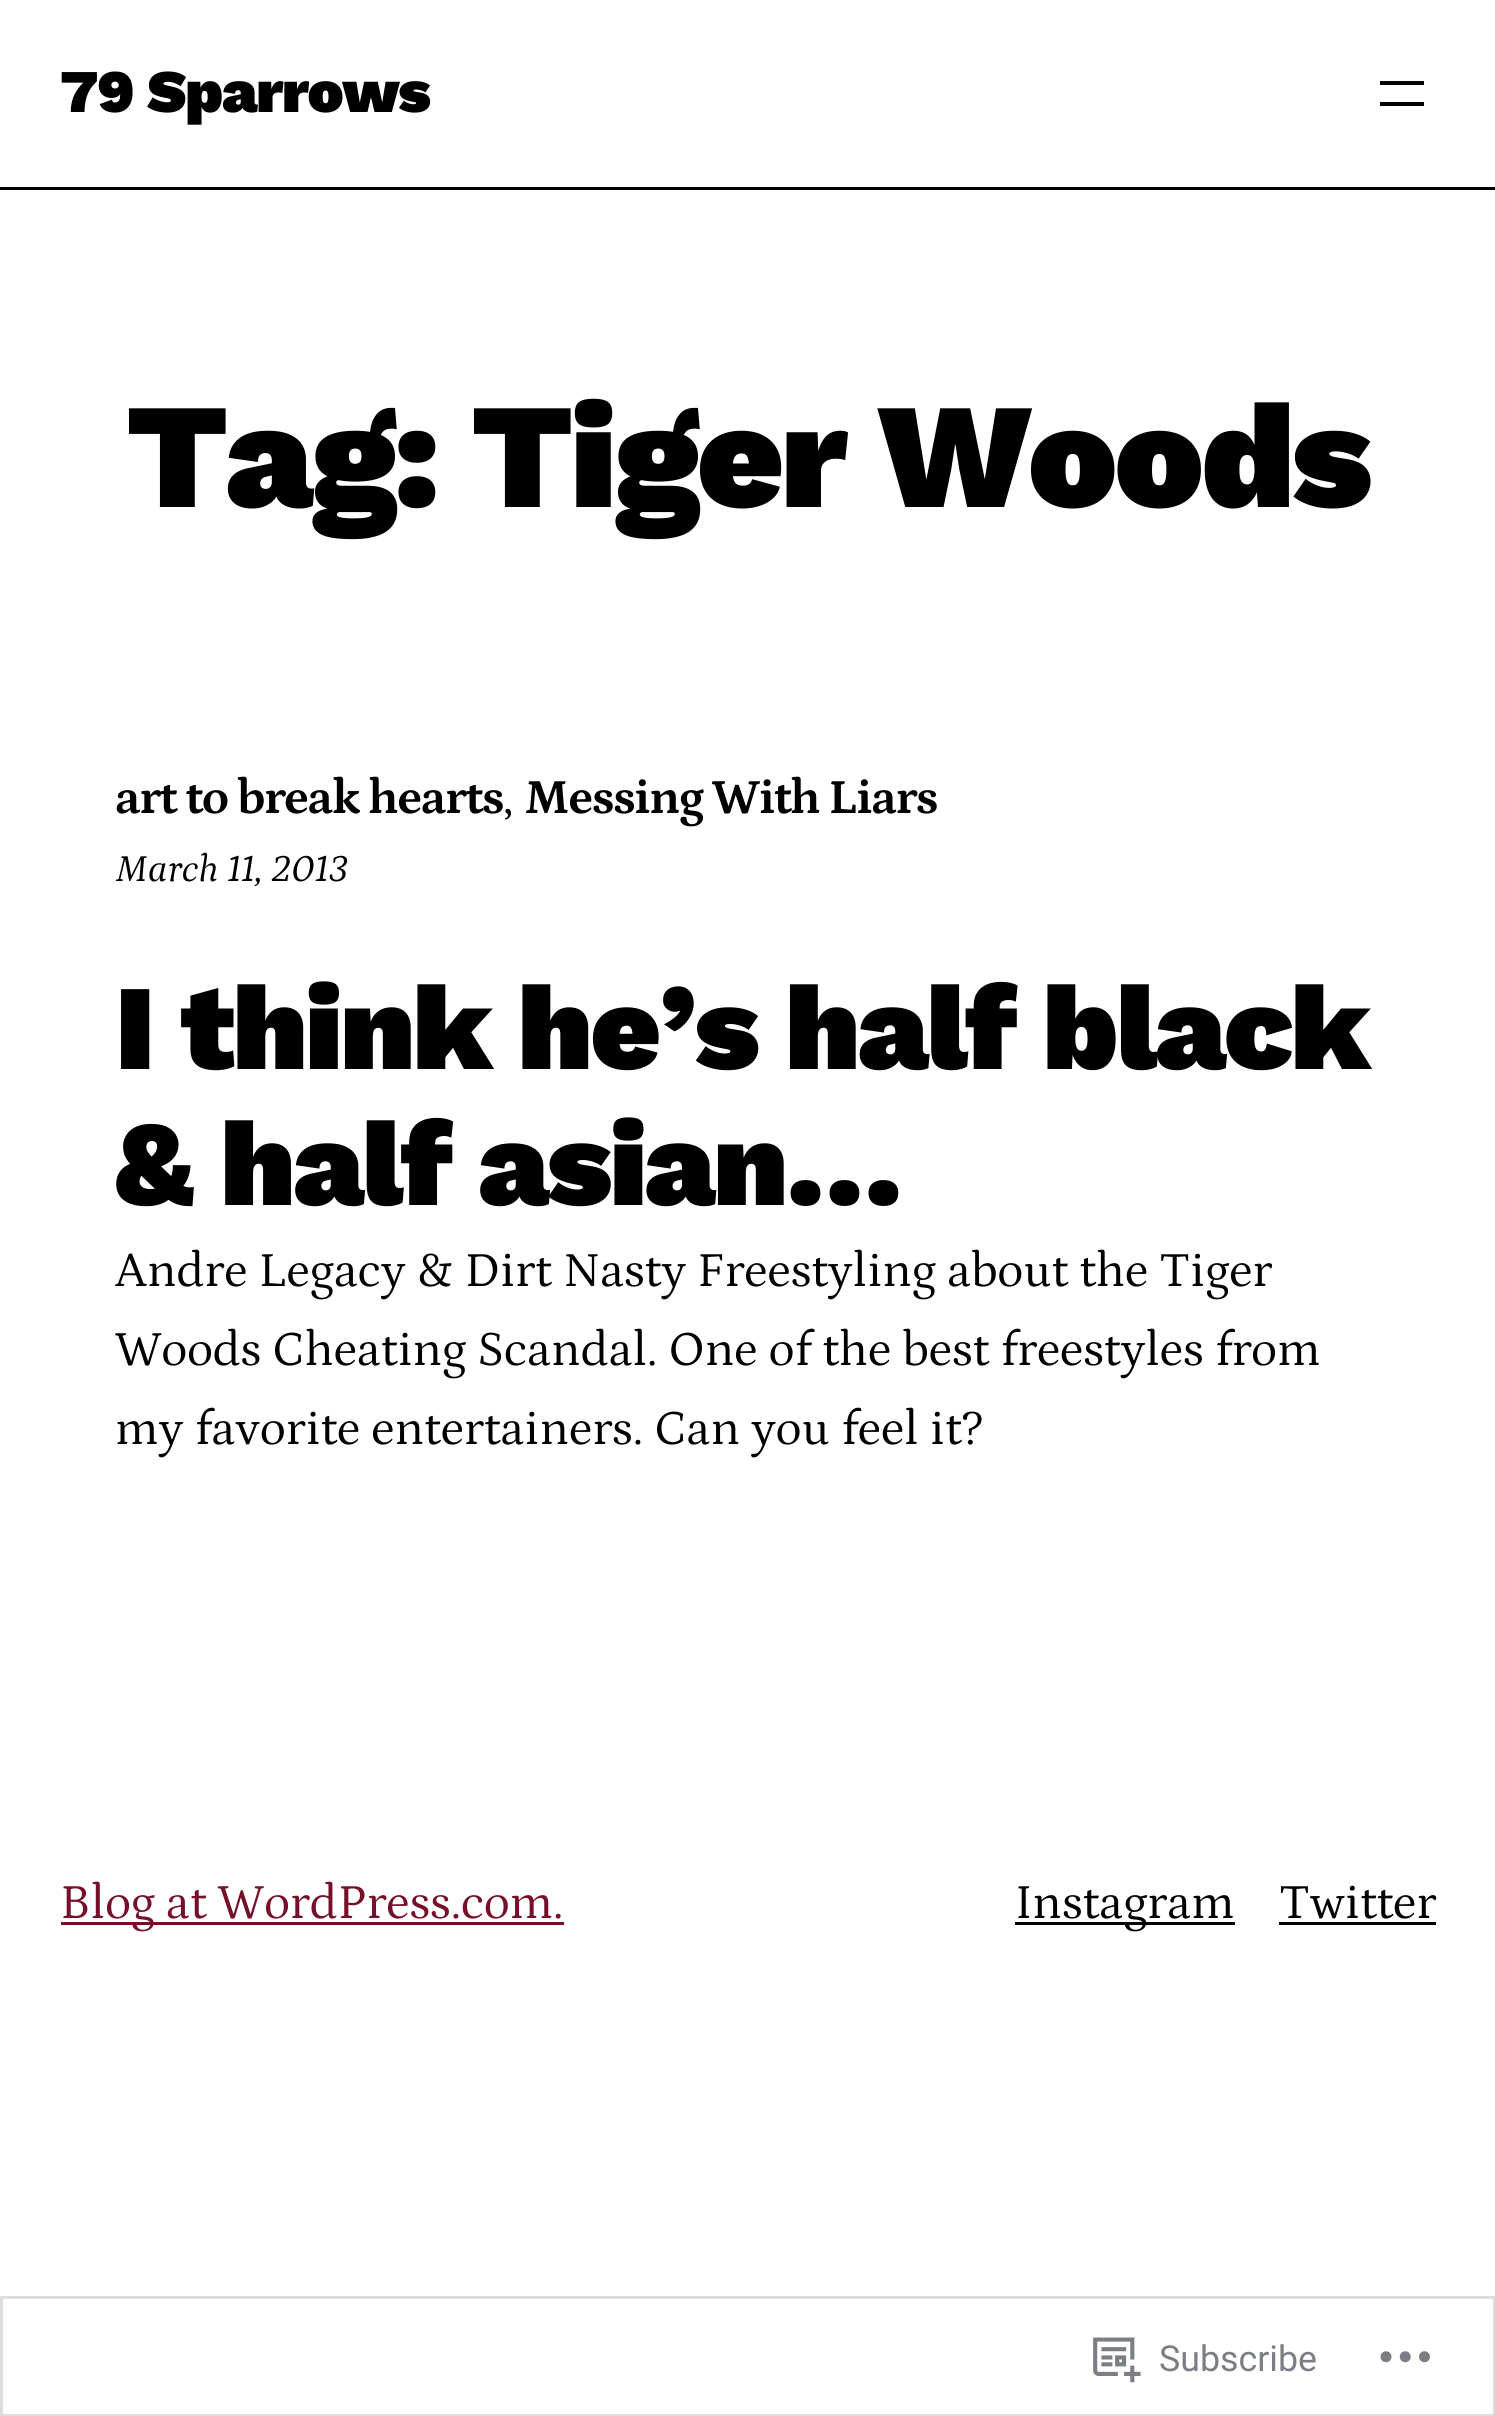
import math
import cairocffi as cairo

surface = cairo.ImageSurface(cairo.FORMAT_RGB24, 1495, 2416)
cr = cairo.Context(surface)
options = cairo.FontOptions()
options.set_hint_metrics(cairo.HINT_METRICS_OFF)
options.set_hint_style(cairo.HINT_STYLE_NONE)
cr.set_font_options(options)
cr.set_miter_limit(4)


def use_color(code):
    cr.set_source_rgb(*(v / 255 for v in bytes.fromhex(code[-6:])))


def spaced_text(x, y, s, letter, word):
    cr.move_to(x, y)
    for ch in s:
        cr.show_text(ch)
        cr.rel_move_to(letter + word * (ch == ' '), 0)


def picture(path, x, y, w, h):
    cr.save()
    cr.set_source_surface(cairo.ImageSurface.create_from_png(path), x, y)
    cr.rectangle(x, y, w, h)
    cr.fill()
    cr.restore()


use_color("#ffffff")
cr.paint()
cr.select_font_face("Work Sans Black")
cr.set_font_size(60.5)
use_color("#000000")
spaced_text(60, 112, "79 Sparrows", -1.25, 0)
cr.rectangle(1380, 81, 44, 4)
cr.fill()
cr.rectangle(1380, 102, 44, 4)
cr.fill()
cr.rectangle(0, 187, 1495, 3)
cr.fill()
cr.set_font_size(149.5)
spaced_text(126, 507, "Tag: Tiger Woods", -3, 0)
cr.select_font_face("Petrona", cairo.FONT_SLANT_NORMAL, cairo.FONT_WEIGHT_BOLD)
cr.set_font_size(49.5)
spaced_text(115, 813, "art to break hearts", -1.5, 0)
cr.select_font_face("Petrona")
cr.move_to(503, 813)
cr.show_text(",")
cr.select_font_face("Petrona", cairo.FONT_SLANT_NORMAL, cairo.FONT_WEIGHT_BOLD)
spaced_text(524, 813, "Messing With Liars", -1.5, 0)
cr.select_font_face("Petrona", cairo.FONT_SLANT_ITALIC)
cr.set_font_size(38.5)
cr.move_to(115, 881)
cr.show_text("March 11, 2013")
cr.select_font_face("Work Sans Black")
cr.set_font_size(121)
spaced_text(115, 1069, "I think he’s half black", -2.4, 0)
spaced_text(115, 1205, "& half asian…", -2.4, 0)
cr.select_font_face("Petrona")
cr.set_font_size(49.5)
cr.move_to(115, 1286)
cr.show_text("Andre Legacy & Dirt Nasty Freestyling about the Tiger")
cr.move_to(115, 1365)
cr.show_text("Woods Cheating Scandal. One of the best freestyles from")
cr.move_to(115, 1444)
cr.show_text("my favorite entertainers. Can you feel it?")
use_color("#761028")
cr.rectangle(61, 1922, 503, 3)
cr.fill()
cr.move_to(60, 1918)
cr.show_text("Blog at WordPress.com.")
use_color("#000000")
cr.rectangle(1015, 1922, 220, 3)
cr.fill()
cr.move_to(1015, 1918)
cr.show_text("Instagram")
cr.move_to(1279, 1918)
cr.show_text("Twitter")
cr.rectangle(1279, 1922, 157, 3)
cr.fill()
cr.rectangle(1.5, 2297.5, 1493, 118)
use_color("#dddddf")
cr.set_line_width(3)
cr.stroke()
picture("img1.png", 1093, 2337, 48, 46)
cr.select_font_face("Roboto")
cr.set_font_size(35.75)
use_color("#7b7f85")
cr.move_to(1159, 2371)
cr.show_text("Subscribe")
picture("img2.png", 1380, 2351, 50, 12)
surface.write_to_png("result.png")
